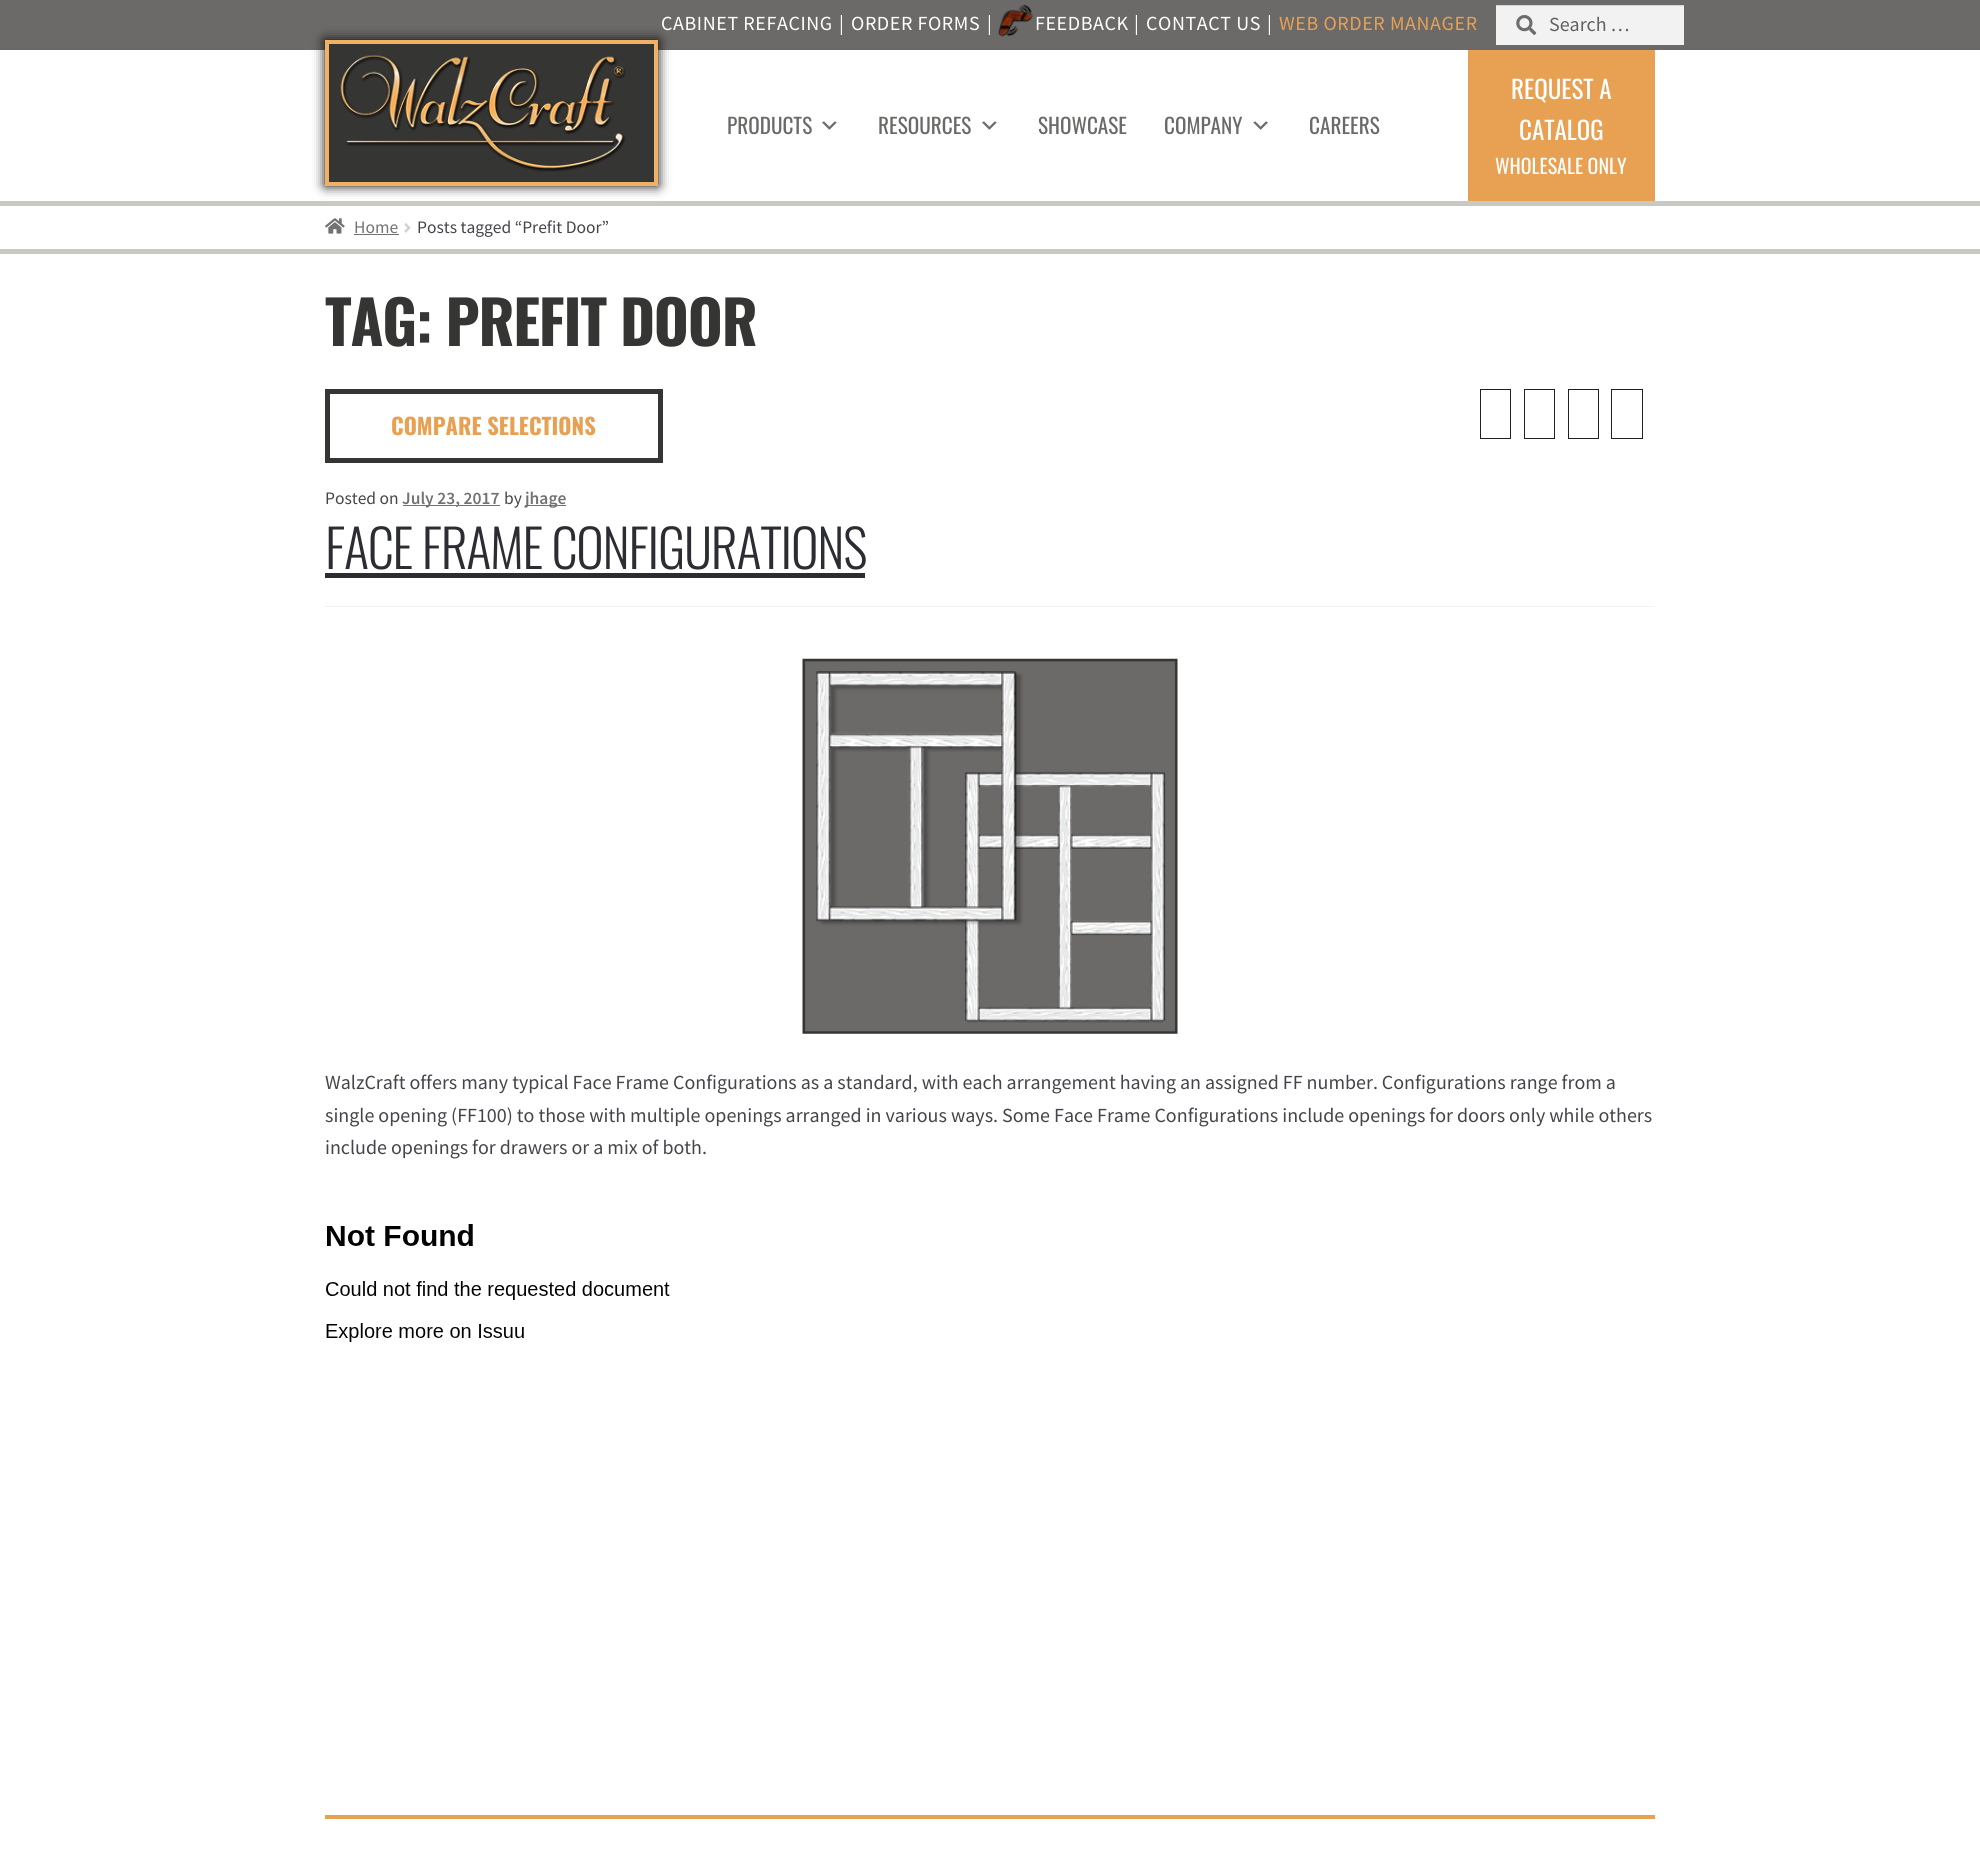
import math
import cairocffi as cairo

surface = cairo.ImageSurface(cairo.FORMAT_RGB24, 1980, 1857)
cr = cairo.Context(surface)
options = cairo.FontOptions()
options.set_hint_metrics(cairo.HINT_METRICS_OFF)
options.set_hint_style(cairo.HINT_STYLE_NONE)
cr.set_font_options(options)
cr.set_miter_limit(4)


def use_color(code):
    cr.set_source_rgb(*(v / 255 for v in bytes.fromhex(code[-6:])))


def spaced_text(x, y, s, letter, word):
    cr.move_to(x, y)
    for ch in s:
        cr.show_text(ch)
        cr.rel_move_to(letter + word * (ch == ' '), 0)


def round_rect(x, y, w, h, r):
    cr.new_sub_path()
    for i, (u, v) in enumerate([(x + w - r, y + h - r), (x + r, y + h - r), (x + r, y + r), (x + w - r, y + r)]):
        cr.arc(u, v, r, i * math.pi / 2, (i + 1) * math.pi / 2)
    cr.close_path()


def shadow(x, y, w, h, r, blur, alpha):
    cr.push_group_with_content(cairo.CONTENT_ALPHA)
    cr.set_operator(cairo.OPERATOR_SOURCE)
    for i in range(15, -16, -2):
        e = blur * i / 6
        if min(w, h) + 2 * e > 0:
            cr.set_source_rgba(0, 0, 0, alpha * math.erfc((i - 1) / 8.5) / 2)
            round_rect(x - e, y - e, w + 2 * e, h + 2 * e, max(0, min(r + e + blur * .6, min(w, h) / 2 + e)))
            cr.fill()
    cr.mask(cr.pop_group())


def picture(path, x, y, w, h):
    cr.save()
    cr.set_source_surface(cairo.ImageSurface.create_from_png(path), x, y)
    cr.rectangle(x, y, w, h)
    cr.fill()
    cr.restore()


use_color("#ffffff")
cr.paint()
use_color("#6b6a68")
cr.rectangle(0, 0, 1980, 50)
cr.fill()
cr.select_font_face("Source Sans Pro")
cr.set_font_size(20)
use_color("#ffffff")
spaced_text(661, 30, "CABINET REFACING", 0.6, 0)
spaced_text(839, 30, "|", 0.6, 0)
spaced_text(851, 30, "ORDER FORMS", 0.6, 0)
spaced_text(987, 30, "|", 0.6, 0)
picture("img1.png", 998, 5, 35, 32)
spaced_text(1035, 30, "FEEDBACK", 0.6, 0)
spaced_text(1134, 30, "|", 0.6, 0)
spaced_text(1146, 30, "CONTACT US", 0.6, 0)
spaced_text(1267, 30, "|", 0.6, 0)
use_color("#e8a053")
spaced_text(1279, 30, "WEB ORDER MANAGER", 0.6, 0)
use_color("#f2f2f2")
cr.rectangle(1496, 6, 188, 39)
cr.fill()
picture("img2.png", 1516, 15, 21, 20)
use_color("#d4d4d4")
cr.rectangle(1496, 5, 188, 1)
cr.fill()
use_color("#616161")
cr.move_to(1549, 31)
cr.show_text("Search …")
use_color("#cac8c4")
cr.rectangle(0, 201, 1980, 5)
cr.fill()
use_color("#070204")
shadow(325, 40, 333, 146, 0, 6, 1)
use_color("#353533")
cr.rectangle(327, 42, 329, 142)
cr.fill_preserve()
use_color("#f0b165")
cr.set_line_width(4)
cr.stroke()
picture("img3.png", 340, 55, 286, 117)
cr.select_font_face("Oswald")
cr.set_font_size(21.25)
use_color("#6b6a68")
cr.move_to(727, 134)
cr.show_text("PRODUCTS")
picture("img4.png", 822, 121, 15, 9)
cr.move_to(878, 134)
cr.show_text("RESOURCES")
picture("img4.png", 982, 121, 15, 9)
cr.move_to(1038, 134)
cr.show_text("SHOWCASE")
cr.move_to(1164, 134)
cr.show_text("COMPANY")
picture("img5.png", 1253, 121, 15, 9)
cr.move_to(1309, 134)
cr.show_text("CAREERS")
use_color("#e8a053")
cr.rectangle(1468, 50, 187, 151)
cr.fill()
cr.set_font_size(25)
use_color("#ffffff")
cr.move_to(1511, 99)
cr.show_text("REQUEST A")
cr.move_to(1519, 140)
cr.show_text("CATALOG")
cr.set_font_size(20)
cr.move_to(1495, 174)
cr.show_text("WHOLESALE ONLY")
use_color("#cac8c4")
cr.rectangle(0, 249, 1980, 5)
cr.fill()
picture("img6.png", 325, 218, 20, 16)
cr.select_font_face("Source Sans Pro")
cr.set_font_size(17.5)
use_color("#727272")
cr.move_to(354, 233)
cr.show_text("Home")
cr.rectangle(354, 234, 45, 1)
cr.fill()
picture("img7.png", 404, 223, 7, 10)
use_color("#43454b")
cr.move_to(417, 233)
cr.show_text("Posts tagged “Prefit Door”")
cr.select_font_face("Oswald", cairo.FONT_SLANT_NORMAL, cairo.FONT_WEIGHT_BOLD)
cr.set_font_size(60)
use_color("#353533")
spaced_text(325, 346, "TAG: PREFIT DOOR", -1.25, 0)
cr.rectangle(327.5, 391.5, 333, 69)
cr.set_line_width(5)
cr.stroke()
cr.set_font_size(22.5)
use_color("#e8a053")
cr.move_to(391, 435)
cr.show_text("COMPARE SELECTIONS")
cr.rectangle(1480.5, 389.5, 30, 49)
use_color("#22211f")
cr.set_line_width(1)
cr.stroke()
cr.rectangle(1524.5, 389.5, 30, 49)
cr.stroke()
cr.rectangle(1568.5, 389.5, 30, 49)
cr.stroke()
cr.rectangle(1611.5, 389.5, 31, 49)
cr.stroke()
use_color("#f2f2f2")
cr.rectangle(325, 606, 1330, 1)
cr.fill()
cr.select_font_face("Source Sans Pro")
cr.set_font_size(17.5)
use_color("#43454b")
cr.move_to(325, 504)
cr.show_text("Posted on")
use_color("#727272")
cr.rectangle(403, 505, 97, 1)
cr.fill()
cr.select_font_face("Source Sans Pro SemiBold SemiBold")
cr.move_to(402, 504)
cr.show_text("July 23, 2017")
cr.select_font_face("Source Sans Pro")
use_color("#43454b")
cr.move_to(504, 504)
cr.show_text("by")
use_color("#727272")
cr.rectangle(525, 505, 41, 1)
cr.fill()
cr.select_font_face("Source Sans Pro SemiBold SemiBold")
cr.move_to(525, 504)
cr.show_text("jhage")
cr.select_font_face("Oswald Light")
cr.set_font_size(52.4)
use_color("#2c2d33")
spaced_text(325, 569, "FACE FRAME CONFIGURATIONS", -1.25, 0)
cr.rectangle(325, 573, 540, 5)
cr.fill()
picture("img8.png", 802, 658, 376, 376)
cr.select_font_face("Source Sans Pro")
cr.set_font_size(20)
use_color("#43454b")
cr.move_to(325, 1089)
cr.show_text("WalzCraft offers many typical Face Frame Configurations as a standard, with each arrangement having an assigned FF number. Configurations range from a")
cr.move_to(325, 1122)
cr.show_text("single opening (FF100) to those with multiple openings arranged in various ways. Some Face Frame Configurations include openings for doors only while others")
cr.move_to(325, 1154)
cr.show_text("include openings for drawers or a mix of both.")
picture("img9.png", 326, 1224, 344, 118)
use_color("#e8a053")
cr.rectangle(325, 1815, 1330, 4)
cr.fill()
surface.write_to_png("result.png")
